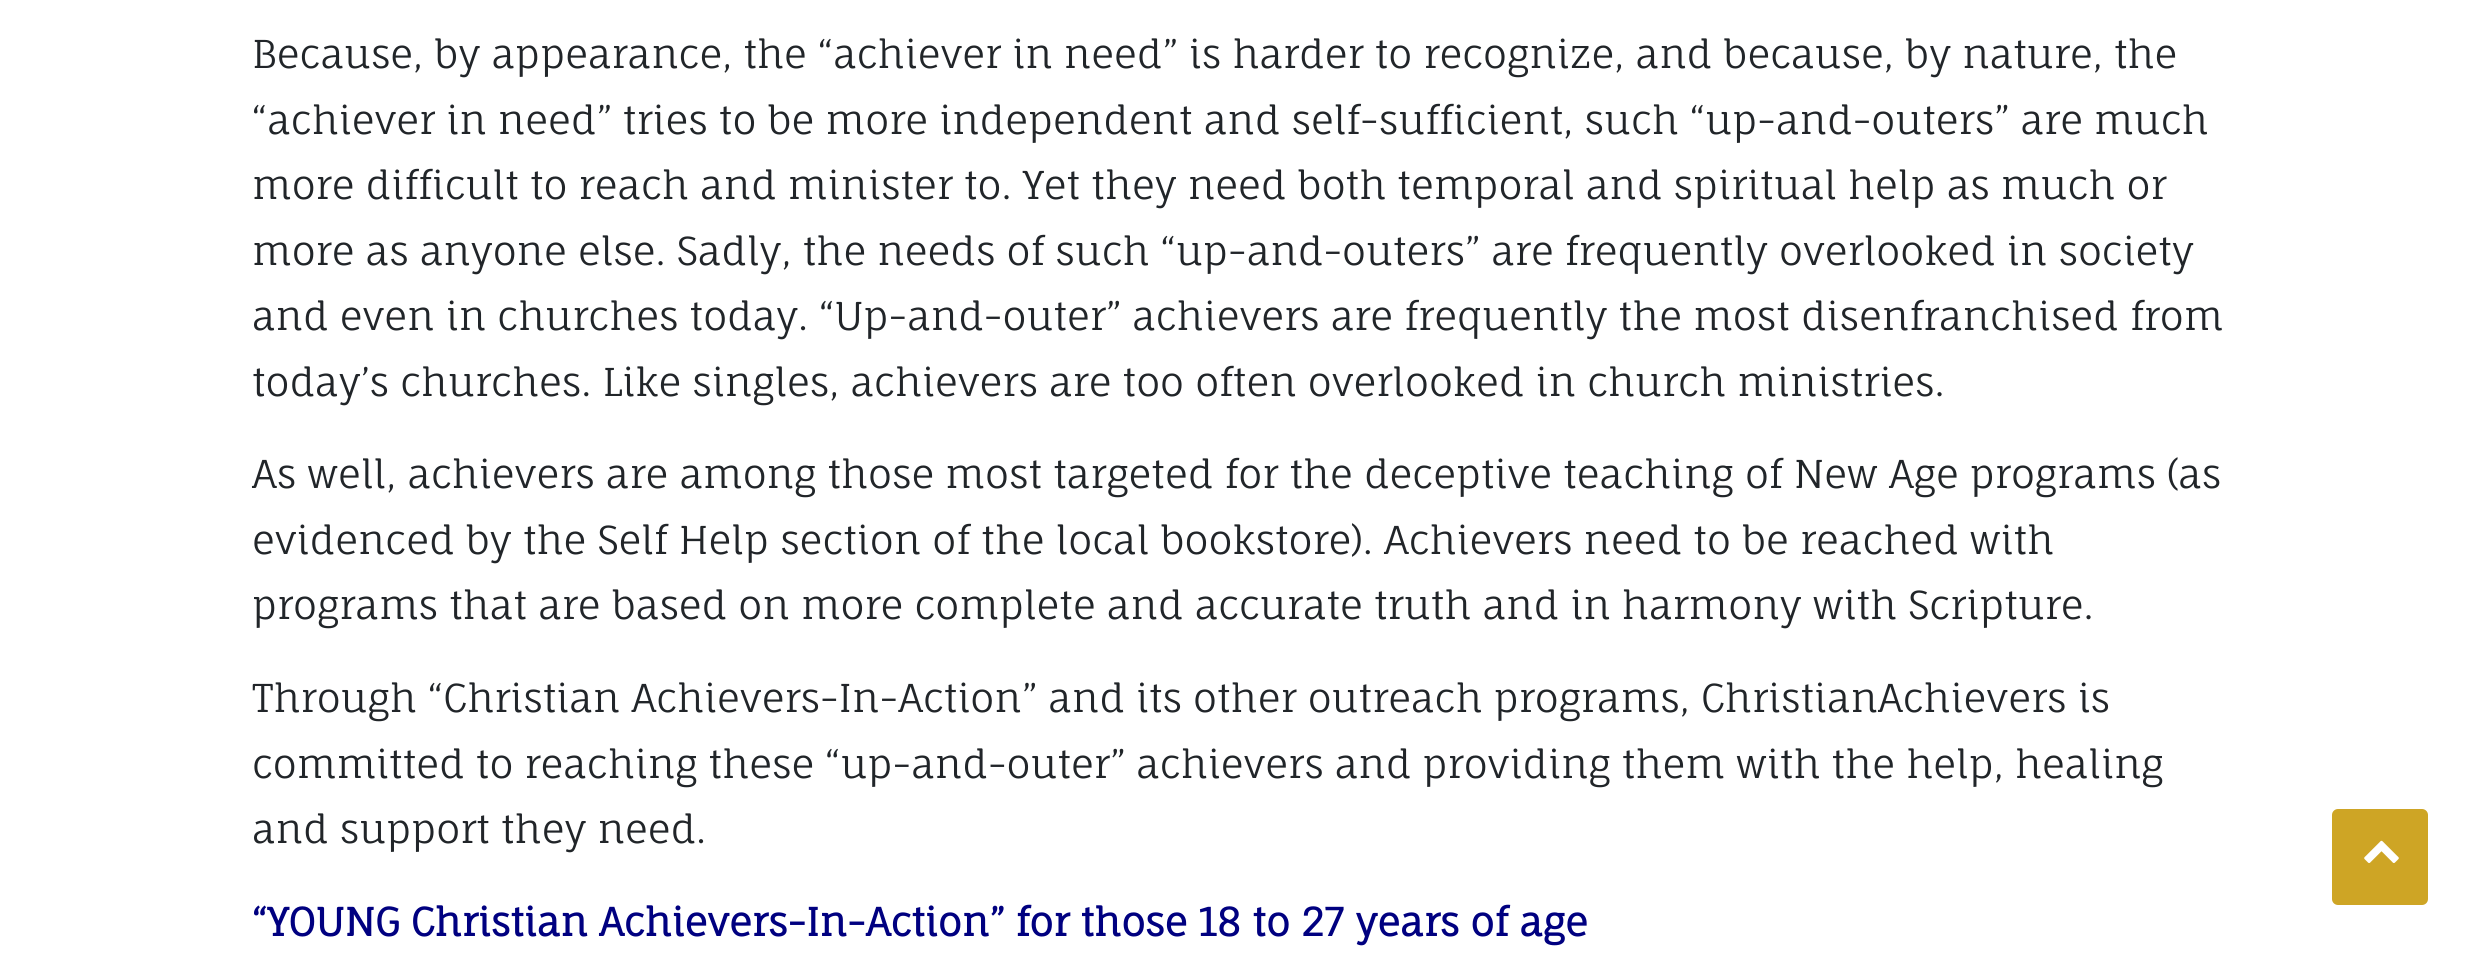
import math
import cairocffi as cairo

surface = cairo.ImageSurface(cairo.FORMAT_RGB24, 2483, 958)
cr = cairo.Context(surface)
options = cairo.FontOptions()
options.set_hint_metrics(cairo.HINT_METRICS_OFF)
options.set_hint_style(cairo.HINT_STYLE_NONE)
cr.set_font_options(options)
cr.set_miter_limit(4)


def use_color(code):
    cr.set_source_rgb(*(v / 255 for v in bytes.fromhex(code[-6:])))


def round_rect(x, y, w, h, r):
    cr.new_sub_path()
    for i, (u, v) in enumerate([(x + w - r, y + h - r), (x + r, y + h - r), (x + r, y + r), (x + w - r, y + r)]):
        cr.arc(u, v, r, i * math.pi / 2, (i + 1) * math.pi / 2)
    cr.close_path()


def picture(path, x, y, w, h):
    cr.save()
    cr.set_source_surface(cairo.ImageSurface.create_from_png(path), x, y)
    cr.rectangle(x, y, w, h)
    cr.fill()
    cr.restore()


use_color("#ffffff")
cr.paint()
cr.select_font_face("Fauna One")
cr.set_font_size(38.5)
use_color("#212529")
cr.move_to(252, 68)
cr.show_text("Because, by appearance, the “achiever in need” is harder to recognize, and because, by nature, the")
cr.move_to(252, 134)
cr.show_text("“achiever in need” tries to be more independent and self-sufficient, such “up-and-outers” are much")
cr.move_to(252, 199)
cr.show_text("more difficult to reach and minister to. Yet they need both temporal and spiritual help as much or")
cr.move_to(252, 265)
cr.show_text("more as anyone else. Sadly, the needs of such “up-and-outers” are frequently overlooked in society")
cr.move_to(252, 330)
cr.show_text("and even in churches today. “Up-and-outer” achievers are frequently the most disenfranchised from")
cr.move_to(252, 396)
cr.show_text("today’s churches. Like singles, achievers are too often overlooked in church ministries.")
cr.move_to(252, 488)
cr.show_text("As well, achievers are among those most targeted for the deceptive teaching of New Age programs (as")
cr.move_to(252, 554)
cr.show_text("evidenced by the Self Help section of the local bookstore). Achievers need to be reached with")
cr.move_to(252, 619)
cr.show_text("programs that are based on more complete and accurate truth and in harmony with Scripture.")
cr.move_to(252, 712)
cr.show_text("Through “Christian Achievers-In-Action” and its other outreach programs, ChristianAchievers is")
cr.move_to(252, 778)
cr.show_text("committed to reaching these “up-and-outer” achievers and providing them with the help, healing")
cr.move_to(252, 843)
cr.show_text("and support they need.")
cr.select_font_face("Fauna One", cairo.FONT_SLANT_NORMAL, cairo.FONT_WEIGHT_BOLD)
use_color("#000080")
cr.move_to(252, 936)
cr.show_text("“YOUNG Christian Achievers-In-Action” for those 18 to 27 years of age")
use_color("#cea525")
round_rect(2332, 809, 96, 96, 6)
cr.fill()
picture("img1.png", 2364, 840, 35, 23)
surface.write_to_png("result.png")
